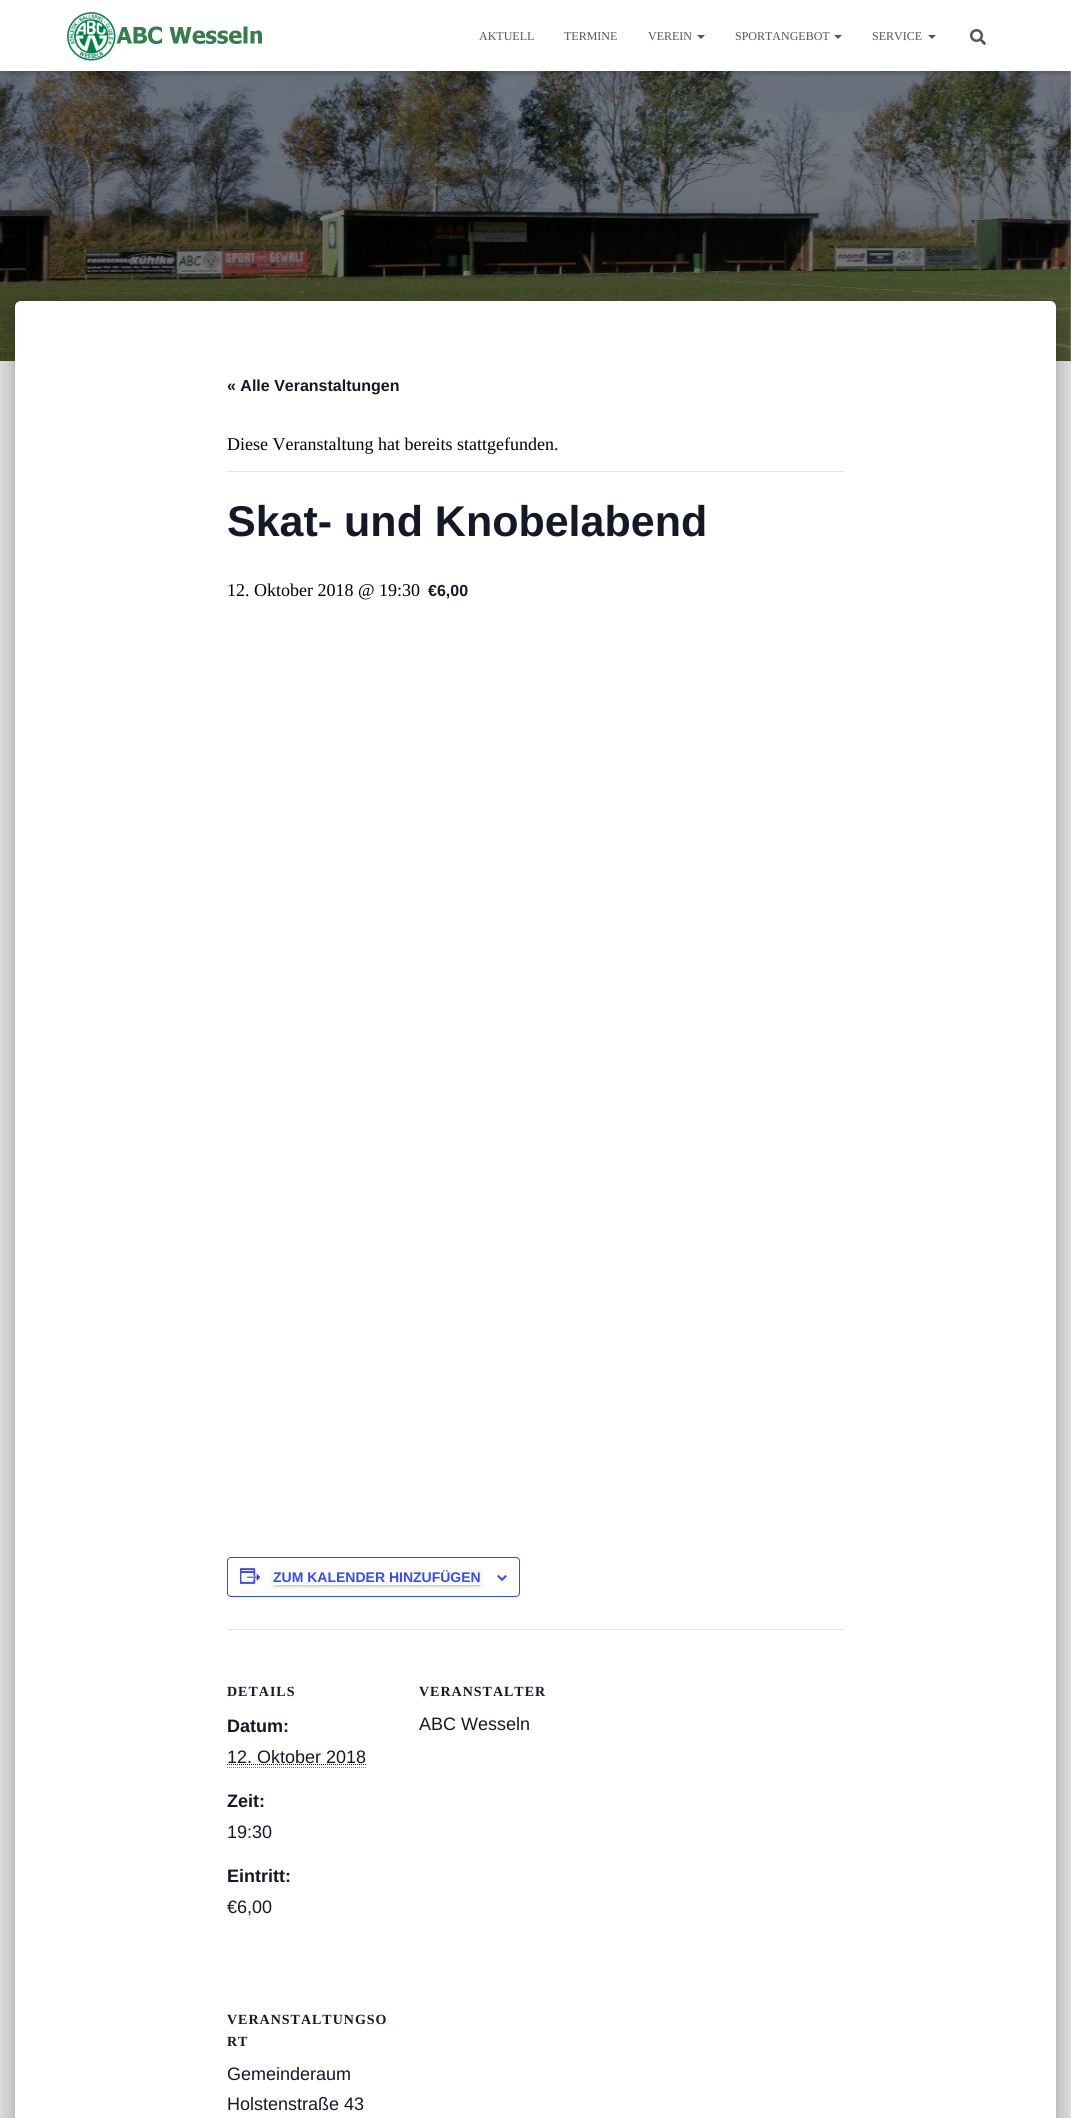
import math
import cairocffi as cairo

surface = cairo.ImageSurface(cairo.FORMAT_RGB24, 1071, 2118)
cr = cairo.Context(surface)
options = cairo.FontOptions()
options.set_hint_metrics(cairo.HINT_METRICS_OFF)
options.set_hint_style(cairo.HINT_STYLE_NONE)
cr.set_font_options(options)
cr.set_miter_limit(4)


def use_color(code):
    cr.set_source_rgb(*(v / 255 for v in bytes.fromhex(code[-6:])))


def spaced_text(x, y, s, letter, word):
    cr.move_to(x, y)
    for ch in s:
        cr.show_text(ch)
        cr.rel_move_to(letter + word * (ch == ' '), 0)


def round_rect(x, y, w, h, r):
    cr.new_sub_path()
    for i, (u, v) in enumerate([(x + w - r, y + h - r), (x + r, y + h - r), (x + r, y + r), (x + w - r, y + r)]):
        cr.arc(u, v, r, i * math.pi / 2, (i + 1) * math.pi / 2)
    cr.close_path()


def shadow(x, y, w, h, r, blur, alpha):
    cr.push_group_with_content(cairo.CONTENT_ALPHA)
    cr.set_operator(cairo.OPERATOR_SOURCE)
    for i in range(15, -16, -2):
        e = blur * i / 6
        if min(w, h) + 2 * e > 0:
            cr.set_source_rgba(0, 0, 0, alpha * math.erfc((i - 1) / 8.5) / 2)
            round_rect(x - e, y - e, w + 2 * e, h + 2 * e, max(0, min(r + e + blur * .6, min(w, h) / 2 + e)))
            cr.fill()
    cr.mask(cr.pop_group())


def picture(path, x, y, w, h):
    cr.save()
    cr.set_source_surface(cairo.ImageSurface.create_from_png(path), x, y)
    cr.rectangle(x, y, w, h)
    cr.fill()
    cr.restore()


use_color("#e5e5e5")
cr.paint()
picture("img3.png", 0, 71, 1071, 290)
use_color("#000000")
shadow(2, 6, 1067, 67, 0, 2.5, 0.1)
shadow(0, 1, 1071, 71, 0, 5, 0.12)
shadow(6, 7, 1059, 59, 0, 5, 0.42)
use_color("#ffffff")
cr.rectangle(0, 0, 1071, 71)
cr.fill()
picture("img1.png", 67, 12, 195, 49)
cr.select_font_face("Liberation Serif")
cr.set_font_size(12)
use_color("#555555")
cr.move_to(479, 40)
cr.show_text("AKTUELL")
cr.move_to(564, 40)
cr.show_text("TERMINE")
cr.move_to(648, 40)
cr.show_text("VEREIN")
cr.new_path()
cr.move_to(697, 35)
cr.line_to(705, 35)
cr.line_to(701, 39)
cr.close_path()
cr.fill()
cr.move_to(735, 40)
cr.show_text("SPORTANGEBOT")
cr.new_path()
cr.move_to(834, 35)
cr.line_to(842, 35)
cr.line_to(838, 39)
cr.close_path()
cr.fill()
cr.move_to(872, 40)
cr.show_text("SERVICE")
cr.new_path()
cr.move_to(928, 35)
cr.line_to(936, 35)
cr.line_to(932, 39)
cr.close_path()
cr.fill()
picture("img2.png", 970, 29, 16, 16)
use_color("#000000")
shadow(20, 314, 1031, 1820, 1, 5, 0.2)
shadow(10, 302, 1051, 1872, 11, 15, 0.12)
shadow(13, 315, 1045, 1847, 8, 12, 0.14)
use_color("#ffffff")
cr.new_path()
cr.move_to(21, 301)
cr.line_to(1050, 301)
cr.curve_to(1053.5, 301, 1056, 303.5, 1056, 307)
cr.line_to(1056, 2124)
cr.line_to(15, 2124)
cr.line_to(15, 307)
cr.curve_to(15, 303.5, 17.5, 301, 21, 301)
cr.close_path()
cr.fill()
cr.select_font_face("Liberation Sans", cairo.FONT_SLANT_NORMAL, cairo.FONT_WEIGHT_BOLD)
cr.set_font_size(16)
use_color("#141827")
cr.move_to(227, 391)
cr.show_text("« Alle Veranstaltungen")
use_color("#e4e4e4")
cr.rectangle(227, 471, 617, 1)
cr.fill()
cr.select_font_face("Liberation Serif")
cr.set_font_size(18)
use_color("#000000")
cr.move_to(227, 450)
cr.show_text("Diese Veranstaltung hat bereits stattgefunden.")
cr.select_font_face("Liberation Sans", cairo.FONT_SLANT_NORMAL, cairo.FONT_WEIGHT_BOLD)
cr.set_font_size(43)
use_color("#141827")
cr.move_to(227, 536)
cr.show_text("Skat- und Knobelabend")
cr.select_font_face("Liberation Serif")
cr.set_font_size(18)
use_color("#000000")
cr.move_to(227, 596)
cr.show_text("12. Oktober 2018 @ 19:30")
cr.select_font_face("Liberation Sans", cairo.FONT_SLANT_NORMAL, cairo.FONT_WEIGHT_BOLD)
cr.set_font_size(16)
use_color("#141827")
cr.move_to(428, 596)
cr.show_text("€6,00")
round_rect(227.5, 1557.5, 292, 39, 3.5)
use_color("#334aff")
cr.set_line_width(1)
cr.stroke()
picture("img4.png", 240, 1568, 21, 16)
cr.save()
cr.set_fill_rule(cairo.FILL_RULE_EVEN_ODD)
cr.new_path()
cr.move_to(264, 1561)
cr.line_to(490, 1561)
cr.line_to(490, 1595)
cr.line_to(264, 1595)
cr.close_path()
cr.move_to(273, 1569)
cr.line_to(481, 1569)
cr.line_to(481, 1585)
cr.line_to(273, 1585)
cr.close_path()
cr.clip()
use_color("#357e4b")
shadow(273, 1570, 208, 16, 0, 2.5, 0.12)
cr.restore()
cr.save()
cr.rectangle(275, 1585, 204, 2)
cr.clip()
use_color("#357e4b")
shadow(275, 1574, 204, 12, 0, 0.5, 0.2)
cr.restore()
cr.save()
cr.set_fill_rule(cairo.FILL_RULE_EVEN_ODD)
cr.new_path()
cr.move_to(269, 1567)
cr.line_to(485, 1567)
cr.line_to(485, 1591)
cr.line_to(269, 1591)
cr.close_path()
cr.move_to(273, 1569)
cr.line_to(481, 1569)
cr.line_to(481, 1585)
cr.line_to(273, 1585)
cr.close_path()
cr.clip()
use_color("#357e4b")
shadow(273, 1571, 208, 16, 0, 1, 0.14)
cr.restore()
cr.set_font_size(14)
cr.move_to(273, 1582)
cr.show_text("ZUM KALENDER HINZUFÜGEN")
picture("img5.png", 497, 1575, 10, 6)
use_color("#e4e4e4")
cr.rectangle(227, 1629, 617, 1)
cr.fill()
cr.select_font_face("Liberation Serif", cairo.FONT_SLANT_NORMAL, cairo.FONT_WEIGHT_BOLD)
use_color("#141827")
spaced_text(227, 1696, "DETAILS", 1, 0)
cr.select_font_face("Liberation Sans", cairo.FONT_SLANT_NORMAL, cairo.FONT_WEIGHT_BOLD)
cr.set_font_size(18)
cr.move_to(227, 1732)
cr.show_text("Datum:")
cr.select_font_face("Liberation Sans")
cr.move_to(227, 1763)
cr.show_text("12. Oktober 2018")
cr.new_path()
cr.move_to(227, 1767.5)
cr.line_to(366, 1767.5)
use_color("#777777")
cr.set_dash([1, 1])
cr.stroke()
cr.new_path()
cr.move_to(227, 1764.5)
cr.line_to(366.5, 1764.5)
use_color("#141827")
cr.stroke()
cr.select_font_face("Liberation Sans", cairo.FONT_SLANT_NORMAL, cairo.FONT_WEIGHT_BOLD)
cr.move_to(227, 1807)
cr.show_text("Zeit:")
cr.select_font_face("Liberation Sans")
cr.move_to(227, 1838)
cr.show_text("19:30")
cr.select_font_face("Liberation Sans", cairo.FONT_SLANT_NORMAL, cairo.FONT_WEIGHT_BOLD)
cr.move_to(227, 1882)
cr.show_text("Eintritt:")
cr.select_font_face("Liberation Sans")
cr.move_to(227, 1913)
cr.show_text("€6,00")
cr.select_font_face("Liberation Serif", cairo.FONT_SLANT_NORMAL, cairo.FONT_WEIGHT_BOLD)
cr.set_font_size(14)
spaced_text(419, 1696, "VERANSTALTER", 1, 0)
cr.select_font_face("Liberation Sans")
cr.set_font_size(18)
cr.move_to(419, 1730)
cr.show_text("ABC Wesseln")
cr.select_font_face("Liberation Serif", cairo.FONT_SLANT_NORMAL, cairo.FONT_WEIGHT_BOLD)
cr.set_font_size(14)
spaced_text(227, 2024, "VERANSTALTUNGSO", 1, 0)
spaced_text(227, 2046, "RT", 1, 0)
cr.select_font_face("Liberation Sans")
cr.set_font_size(18)
cr.move_to(227, 2080)
cr.show_text("Gemeinderaum")
cr.move_to(227, 2110)
cr.show_text("Holstenstraße 43")
surface.write_to_png("result.png")
